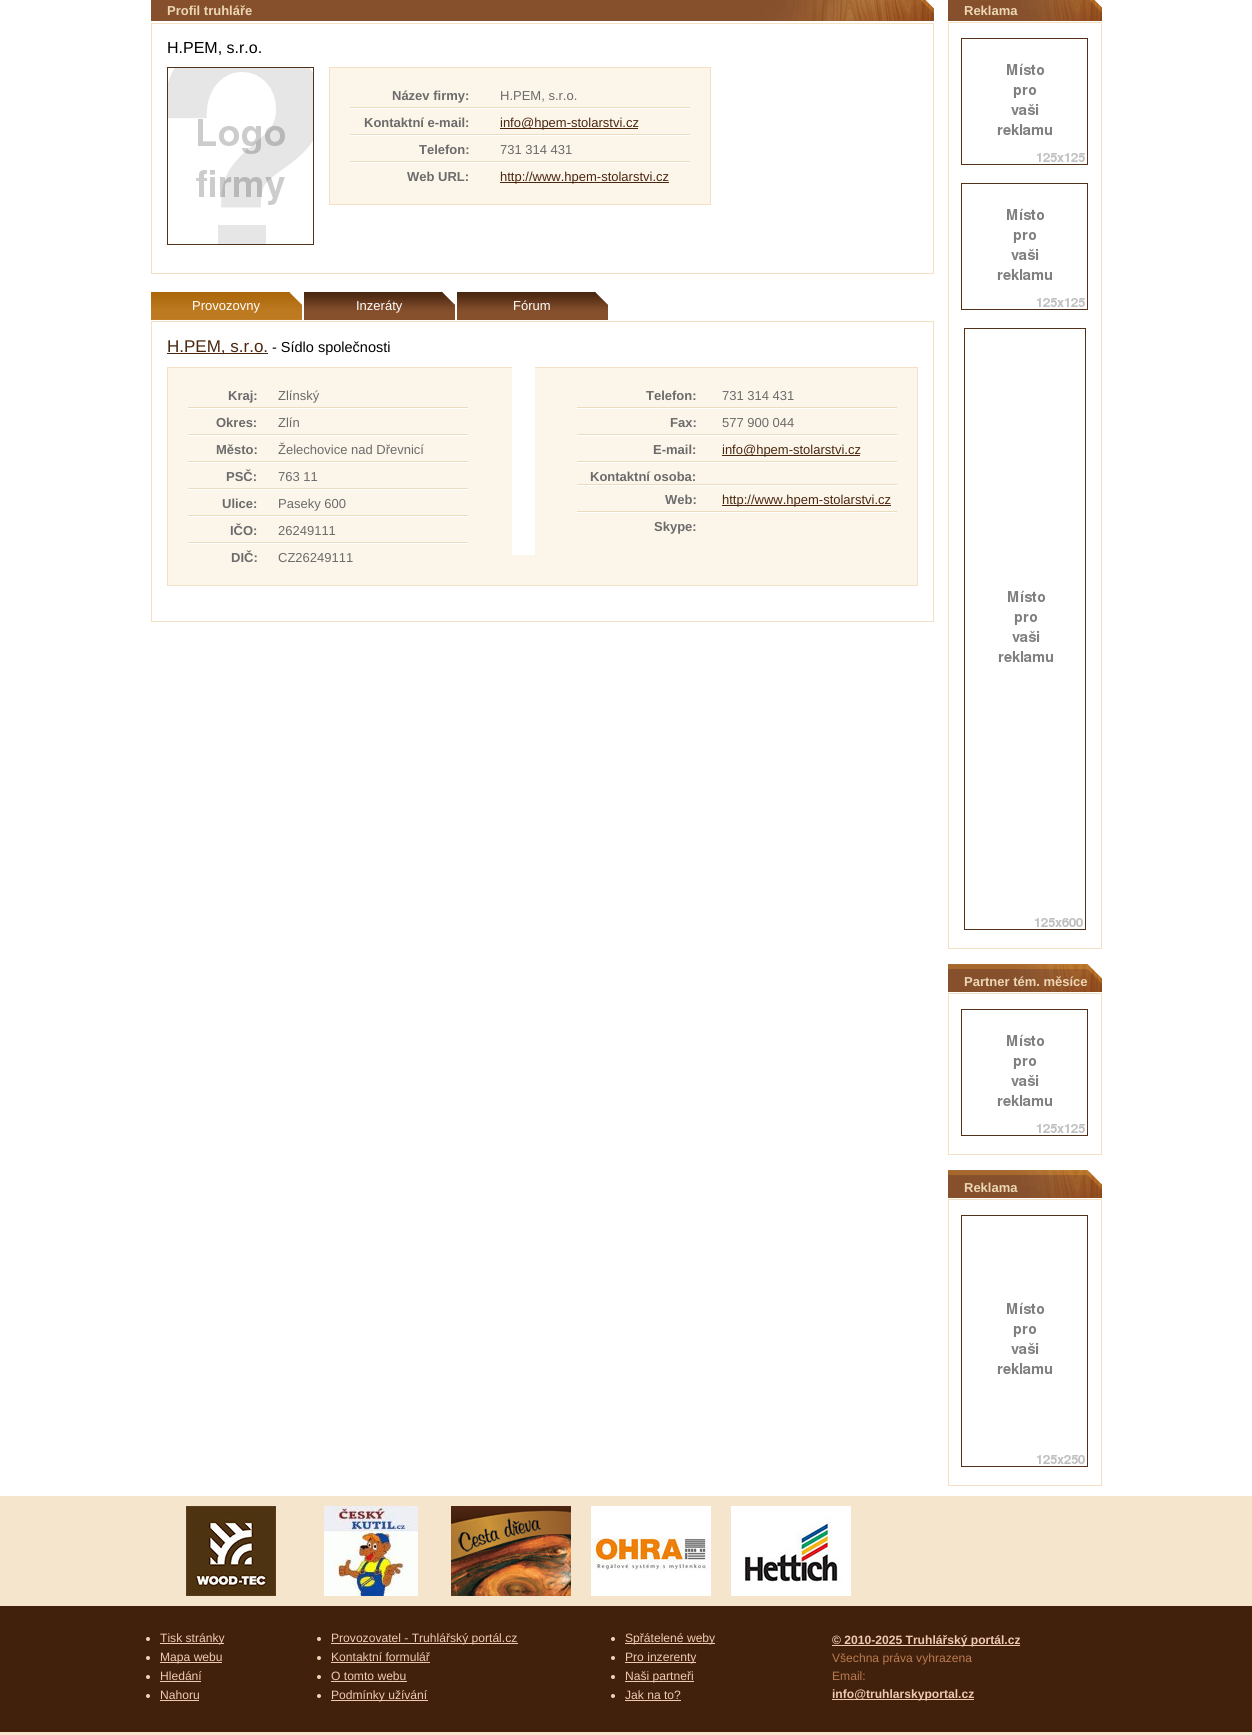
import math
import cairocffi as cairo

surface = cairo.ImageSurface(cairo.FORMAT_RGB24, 1252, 1735)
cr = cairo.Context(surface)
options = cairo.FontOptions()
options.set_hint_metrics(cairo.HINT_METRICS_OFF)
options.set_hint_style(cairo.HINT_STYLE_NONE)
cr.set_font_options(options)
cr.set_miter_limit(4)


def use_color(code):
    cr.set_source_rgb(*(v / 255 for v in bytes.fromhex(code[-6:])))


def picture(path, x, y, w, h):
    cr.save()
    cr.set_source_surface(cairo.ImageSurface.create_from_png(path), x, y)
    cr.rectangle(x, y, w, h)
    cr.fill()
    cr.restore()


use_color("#ffffff")
cr.paint()
picture("img1.png", 151, 0, 783, 21)
cr.select_font_face("Liberation Sans", cairo.FONT_SLANT_NORMAL, cairo.FONT_WEIGHT_BOLD)
cr.set_font_size(13)
use_color("#ecd7b5")
cr.move_to(167, 15)
cr.show_text("Profil truhláře")
cr.rectangle(151.5, 23.5, 782, 250)
use_color("#f4e0c5")
cr.set_line_width(1)
cr.stroke()
cr.select_font_face("Liberation Sans")
cr.set_font_size(16)
use_color("#000000")
cr.move_to(167, 53)
cr.show_text("H.PEM, s.r.o.")
cr.rectangle(167.5, 67.5, 146, 177)
use_color("#53301a")
cr.stroke()
picture("img2.png", 168, 68, 145, 176)
use_color("#fcf5ea")
cr.rectangle(329.5, 67.5, 381, 137)
cr.fill_preserve()
use_color("#f4e0c5")
cr.stroke()
cr.select_font_face("Liberation Sans", cairo.FONT_SLANT_NORMAL, cairo.FONT_WEIGHT_BOLD)
cr.set_font_size(13)
use_color("#6b6b6b")
cr.move_to(392, 100)
cr.show_text("Název firmy:")
cr.select_font_face("Liberation Sans")
cr.move_to(500, 100)
cr.show_text("H.PEM, s.r.o.")
picture("img3.png", 350, 107, 340, 2)
cr.select_font_face("Liberation Sans", cairo.FONT_SLANT_NORMAL, cairo.FONT_WEIGHT_BOLD)
cr.move_to(364, 127)
cr.show_text("Kontaktní e-mail:")
use_color("#4b2710")
cr.rectangle(500, 128, 138, 1)
cr.fill()
cr.select_font_face("Liberation Sans")
cr.move_to(500, 127)
cr.show_text("info@hpem-stolarstvi.cz")
picture("img3.png", 350, 134, 340, 2)
cr.select_font_face("Liberation Sans", cairo.FONT_SLANT_NORMAL, cairo.FONT_WEIGHT_BOLD)
use_color("#6b6b6b")
cr.move_to(419, 154)
cr.show_text("Telefon:")
cr.select_font_face("Liberation Sans")
cr.move_to(500, 154)
cr.show_text("731 314 431")
picture("img3.png", 350, 161, 340, 2)
cr.select_font_face("Liberation Sans", cairo.FONT_SLANT_NORMAL, cairo.FONT_WEIGHT_BOLD)
cr.move_to(407, 181)
cr.show_text("Web URL:")
use_color("#4b2710")
cr.rectangle(500, 182, 169, 1)
cr.fill()
cr.select_font_face("Liberation Sans")
cr.move_to(500, 181)
cr.show_text("http://www.hpem-stolarstvi.cz")
picture("img4.png", 289, 292, 13, 28)
picture("img5.png", 151, 292, 138, 28)
use_color("#ffffff")
cr.move_to(192, 310)
cr.show_text("Provozovny")
picture("img6.png", 442, 292, 13, 28)
picture("img7.png", 304, 292, 138, 28)
cr.move_to(356, 310)
cr.show_text("Inzeráty")
picture("img6.png", 595, 292, 13, 28)
picture("img7.png", 457, 292, 138, 28)
cr.move_to(513, 310)
cr.show_text("Fórum")
cr.rectangle(151.5, 321.5, 782, 300)
use_color("#f4e0c5")
cr.stroke()
use_color("#4b2710")
cr.rectangle(167, 353, 101, 1)
cr.fill()
cr.set_font_size(17)
cr.move_to(167, 352)
cr.show_text("H.PEM, s.r.o.")
cr.set_font_size(14.5)
use_color("#000000")
cr.move_to(272, 352)
cr.show_text("- Sídlo společnosti")
use_color("#fcf5ea")
cr.rectangle(167.5, 367.5, 750, 218)
cr.fill_preserve()
use_color("#f4e0c5")
cr.stroke()
cr.select_font_face("Liberation Sans", cairo.FONT_SLANT_NORMAL, cairo.FONT_WEIGHT_BOLD)
cr.set_font_size(13)
use_color("#6b6b6b")
cr.move_to(228, 400)
cr.show_text("Kraj:")
cr.select_font_face("Liberation Sans")
cr.move_to(278, 400)
cr.show_text("Zlínský")
picture("img8.png", 188, 407, 280, 2)
cr.select_font_face("Liberation Sans", cairo.FONT_SLANT_NORMAL, cairo.FONT_WEIGHT_BOLD)
cr.move_to(216, 427)
cr.show_text("Okres:")
cr.select_font_face("Liberation Sans")
cr.move_to(278, 427)
cr.show_text("Zlín")
picture("img8.png", 188, 434, 280, 2)
cr.select_font_face("Liberation Sans", cairo.FONT_SLANT_NORMAL, cairo.FONT_WEIGHT_BOLD)
cr.move_to(216, 454)
cr.show_text("Město:")
cr.select_font_face("Liberation Sans")
cr.move_to(278, 454)
cr.show_text("Želechovice nad Dřevnicí")
picture("img8.png", 188, 461, 280, 2)
cr.select_font_face("Liberation Sans", cairo.FONT_SLANT_NORMAL, cairo.FONT_WEIGHT_BOLD)
cr.move_to(226, 481)
cr.show_text("PSČ:")
cr.select_font_face("Liberation Sans")
cr.move_to(278, 481)
cr.show_text("763 11")
picture("img8.png", 188, 488, 280, 2)
cr.select_font_face("Liberation Sans", cairo.FONT_SLANT_NORMAL, cairo.FONT_WEIGHT_BOLD)
cr.move_to(222, 508)
cr.show_text("Ulice:")
cr.select_font_face("Liberation Sans")
cr.move_to(278, 508)
cr.show_text("Paseky 600")
picture("img8.png", 188, 515, 280, 2)
cr.select_font_face("Liberation Sans", cairo.FONT_SLANT_NORMAL, cairo.FONT_WEIGHT_BOLD)
cr.move_to(230, 535)
cr.show_text("IČO:")
cr.select_font_face("Liberation Sans")
cr.move_to(278, 535)
cr.show_text("26249111")
picture("img8.png", 188, 542, 280, 2)
cr.select_font_face("Liberation Sans", cairo.FONT_SLANT_NORMAL, cairo.FONT_WEIGHT_BOLD)
cr.move_to(231, 562)
cr.show_text("DIČ:")
cr.select_font_face("Liberation Sans")
cr.move_to(278, 562)
cr.show_text("CZ26249111")
use_color("#ffffff")
cr.rectangle(512, 367, 23, 188)
cr.fill()
cr.select_font_face("Liberation Sans", cairo.FONT_SLANT_NORMAL, cairo.FONT_WEIGHT_BOLD)
use_color("#6b6b6b")
cr.move_to(646, 400)
cr.show_text("Telefon:")
cr.select_font_face("Liberation Sans")
cr.move_to(722, 400)
cr.show_text("731 314 431")
picture("img9.png", 577, 407, 320, 2)
cr.select_font_face("Liberation Sans", cairo.FONT_SLANT_NORMAL, cairo.FONT_WEIGHT_BOLD)
cr.move_to(670, 427)
cr.show_text("Fax:")
cr.select_font_face("Liberation Sans")
cr.move_to(722, 427)
cr.show_text("577 900 044")
picture("img9.png", 577, 434, 320, 2)
cr.select_font_face("Liberation Sans", cairo.FONT_SLANT_NORMAL, cairo.FONT_WEIGHT_BOLD)
cr.move_to(653, 454)
cr.show_text("E-mail:")
use_color("#4b2710")
cr.rectangle(722, 455, 138, 1)
cr.fill()
cr.select_font_face("Liberation Sans")
cr.move_to(722, 454)
cr.show_text("info@hpem-stolarstvi.cz")
picture("img9.png", 577, 461, 320, 2)
cr.select_font_face("Liberation Sans", cairo.FONT_SLANT_NORMAL, cairo.FONT_WEIGHT_BOLD)
use_color("#6b6b6b")
cr.move_to(590, 481)
cr.show_text("Kontaktní osoba:")
picture("img9.png", 577, 484, 320, 2)
cr.move_to(665, 504)
cr.show_text("Web:")
use_color("#4b2710")
cr.rectangle(722, 505, 169, 1)
cr.fill()
cr.select_font_face("Liberation Sans")
cr.move_to(722, 504)
cr.show_text("http://www.hpem-stolarstvi.cz")
picture("img9.png", 577, 511, 320, 2)
cr.select_font_face("Liberation Sans", cairo.FONT_SLANT_NORMAL, cairo.FONT_WEIGHT_BOLD)
use_color("#6b6b6b")
cr.move_to(654, 531)
cr.show_text("Skype:")
picture("img10.png", 948, 0, 154, 21)
use_color("#ecd7b5")
cr.move_to(964, 15)
cr.show_text("Reklama")
cr.rectangle(948.5, 22.5, 153, 926)
use_color("#f4e0c5")
cr.stroke()
cr.rectangle(961.5, 38.5, 126, 126)
use_color("#53301a")
cr.stroke()
picture("img11.png", 997, 63, 88, 99)
cr.rectangle(961.5, 183.5, 126, 126)
cr.stroke()
picture("img11.png", 997, 208, 88, 99)
cr.rectangle(964.5, 328.5, 121, 601)
cr.stroke()
picture("img12.png", 998, 590, 85, 337)
picture("img13.png", 948, 964, 154, 28)
use_color("#ecd7b5")
cr.move_to(964, 986)
cr.show_text("Partner tém. měsíce")
cr.rectangle(948.5, 993.5, 153, 161)
use_color("#f4e0c5")
cr.stroke()
cr.rectangle(961.5, 1009.5, 126, 126)
use_color("#53301a")
cr.stroke()
picture("img11.png", 997, 1034, 88, 99)
picture("img13.png", 948, 1170, 154, 28)
use_color("#ecd7b5")
cr.move_to(964, 1192)
cr.show_text("Reklama")
cr.rectangle(948.5, 1199.5, 153, 286)
use_color("#f4e0c5")
cr.stroke()
cr.rectangle(961.5, 1215.5, 126, 251)
use_color("#53301a")
cr.stroke()
picture("img14.png", 997, 1302, 88, 162)
use_color("#f5e5cc")
cr.rectangle(0, 1496, 1252, 239)
cr.fill()
picture("img15.png", 186, 1506, 90, 90)
picture("img16.png", 324, 1506, 94, 90)
picture("img17.png", 451, 1506, 120, 90)
picture("img18.png", 591, 1506, 120, 90)
picture("img19.png", 731, 1506, 120, 90)
use_color("#42210c")
cr.rectangle(0, 1606, 1252, 126)
cr.fill()
use_color("#ecd7b5")
cr.arc(148, 1639, 2, 0, 2 * math.pi)
cr.fill()
use_color("#efc9b1")
cr.rectangle(160, 1643, 64, 1)
cr.fill()
cr.select_font_face("Liberation Sans")
cr.set_font_size(12.1)
cr.move_to(160, 1642)
cr.show_text("Tisk stránky")
use_color("#ecd7b5")
cr.new_path()
cr.arc(148, 1658, 2, 0, 2 * math.pi)
cr.fill()
use_color("#efc9b1")
cr.rectangle(160, 1662, 62, 1)
cr.fill()
cr.move_to(160, 1661)
cr.show_text("Mapa webu")
use_color("#ecd7b5")
cr.new_path()
cr.arc(148, 1677, 2, 0, 2 * math.pi)
cr.fill()
use_color("#efc9b1")
cr.move_to(160, 1680)
cr.show_text("Hledání")
cr.rectangle(160, 1681, 41, 1)
cr.fill()
use_color("#ecd7b5")
cr.arc(148, 1696, 2, 0, 2 * math.pi)
cr.fill()
use_color("#efc9b1")
cr.move_to(160, 1699)
cr.show_text("Nahoru")
cr.rectangle(160, 1700, 39, 1)
cr.fill()
use_color("#ecd7b5")
cr.arc(319, 1639, 2, 0, 2 * math.pi)
cr.fill()
use_color("#efc9b1")
cr.rectangle(331, 1643, 187, 1)
cr.fill()
cr.move_to(331, 1642)
cr.show_text("Provozovatel - Truhlářský portál.cz")
use_color("#ecd7b5")
cr.new_path()
cr.arc(319, 1658, 2, 0, 2 * math.pi)
cr.fill()
use_color("#efc9b1")
cr.move_to(331, 1661)
cr.show_text("Kontaktní formulář")
cr.rectangle(331, 1662, 99, 1)
cr.fill()
use_color("#ecd7b5")
cr.arc(319, 1677, 2, 0, 2 * math.pi)
cr.fill()
use_color("#efc9b1")
cr.move_to(331, 1680)
cr.show_text("O tomto webu")
cr.rectangle(331, 1681, 76, 1)
cr.fill()
use_color("#ecd7b5")
cr.arc(319, 1696, 2, 0, 2 * math.pi)
cr.fill()
use_color("#efc9b1")
cr.rectangle(331, 1700, 97, 1)
cr.fill()
cr.move_to(331, 1699)
cr.show_text("Podmínky užívání")
use_color("#ecd7b5")
cr.new_path()
cr.arc(613, 1639, 2, 0, 2 * math.pi)
cr.fill()
use_color("#efc9b1")
cr.rectangle(625, 1643, 90, 1)
cr.fill()
cr.move_to(625, 1642)
cr.show_text("Spřátelené weby")
use_color("#ecd7b5")
cr.new_path()
cr.arc(613, 1658, 2, 0, 2 * math.pi)
cr.fill()
use_color("#efc9b1")
cr.rectangle(625, 1662, 71, 1)
cr.fill()
cr.move_to(625, 1661)
cr.show_text("Pro inzerenty")
use_color("#ecd7b5")
cr.new_path()
cr.arc(613, 1677, 2, 0, 2 * math.pi)
cr.fill()
use_color("#efc9b1")
cr.rectangle(625, 1681, 69, 1)
cr.fill()
cr.move_to(625, 1680)
cr.show_text("Naši partneři")
use_color("#ecd7b5")
cr.new_path()
cr.arc(613, 1696, 2, 0, 2 * math.pi)
cr.fill()
use_color("#efc9b1")
cr.move_to(625, 1699)
cr.show_text("Jak na to?")
cr.rectangle(625, 1700, 56, 1)
cr.fill()
cr.rectangle(832, 1645, 188, 1)
cr.fill()
cr.select_font_face("Liberation Sans", cairo.FONT_SLANT_NORMAL, cairo.FONT_WEIGHT_BOLD)
cr.move_to(832, 1644)
cr.show_text("© 2010-2025 Truhlářský portál.cz")
cr.select_font_face("Liberation Sans")
use_color("#ba7a50")
cr.move_to(832, 1662)
cr.show_text("Všechna práva vyhrazena")
cr.move_to(832, 1680)
cr.show_text("Email:")
use_color("#efc9b1")
cr.rectangle(832, 1699, 142, 1)
cr.fill()
cr.select_font_face("Liberation Sans", cairo.FONT_SLANT_NORMAL, cairo.FONT_WEIGHT_BOLD)
cr.move_to(832, 1698)
cr.show_text("info@truhlarskyportal.cz")
surface.write_to_png("result.png")
